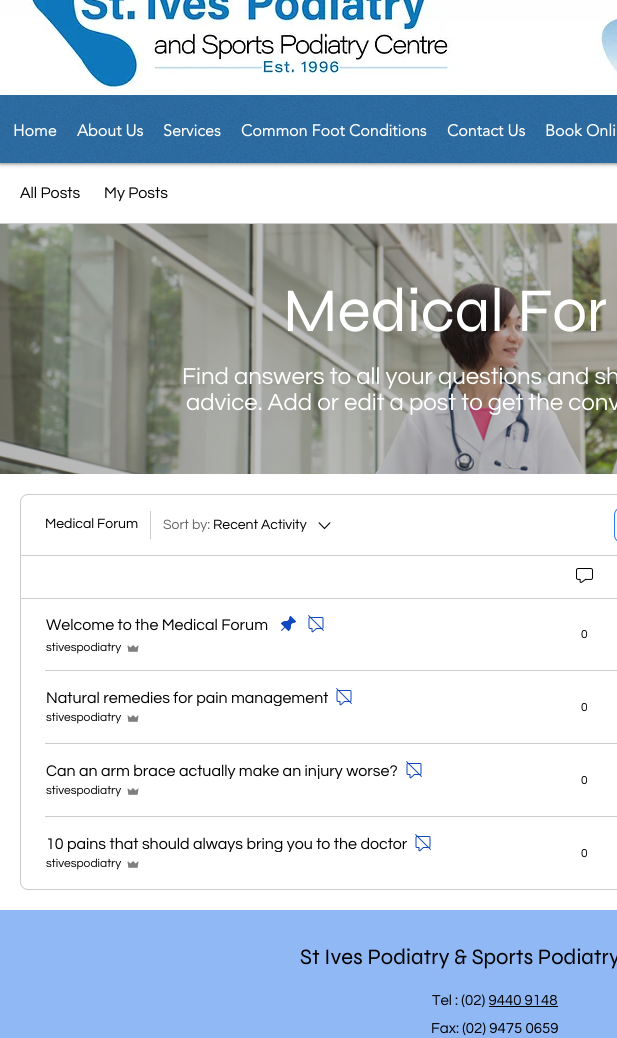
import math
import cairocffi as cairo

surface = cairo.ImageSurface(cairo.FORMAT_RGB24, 617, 1038)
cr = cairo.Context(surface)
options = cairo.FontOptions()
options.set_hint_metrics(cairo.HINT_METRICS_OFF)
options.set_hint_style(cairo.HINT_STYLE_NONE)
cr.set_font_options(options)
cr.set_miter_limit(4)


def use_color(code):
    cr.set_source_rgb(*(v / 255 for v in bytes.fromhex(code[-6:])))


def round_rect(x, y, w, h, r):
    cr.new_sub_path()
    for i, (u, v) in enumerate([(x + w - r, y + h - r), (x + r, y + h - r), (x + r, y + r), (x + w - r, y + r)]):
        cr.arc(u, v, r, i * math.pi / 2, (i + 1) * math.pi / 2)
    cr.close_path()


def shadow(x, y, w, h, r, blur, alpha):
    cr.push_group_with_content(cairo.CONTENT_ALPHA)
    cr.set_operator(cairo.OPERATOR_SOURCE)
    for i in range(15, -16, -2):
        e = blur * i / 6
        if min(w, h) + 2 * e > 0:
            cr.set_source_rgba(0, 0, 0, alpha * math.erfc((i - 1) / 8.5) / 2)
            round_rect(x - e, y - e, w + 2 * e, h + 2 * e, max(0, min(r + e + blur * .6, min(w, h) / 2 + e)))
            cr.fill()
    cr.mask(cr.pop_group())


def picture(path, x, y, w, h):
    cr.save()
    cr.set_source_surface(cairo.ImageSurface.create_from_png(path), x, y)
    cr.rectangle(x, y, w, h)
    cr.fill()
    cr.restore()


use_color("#ffffff")
cr.paint()
use_color("#000000")
shadow(0, -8, 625, 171, 0, 2.5, 0.7)
use_color("#2b6ca3")
cr.rectangle(0, 95, 617, 68)
cr.fill()
picture("img1.png", 0, 95, 617, 68)
picture("img2.png", 0, 0, 617, 95)
cr.select_font_face("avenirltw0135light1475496", cairo.FONT_SLANT_NORMAL, cairo.FONT_WEIGHT_BOLD)
cr.set_font_size(16)
use_color("#ffffff")
cr.move_to(13, 136)
cr.show_text("Home")
cr.move_to(77, 136)
cr.show_text("About Us")
cr.move_to(163, 136)
cr.show_text("Services")
cr.move_to(241, 136)
cr.show_text("Common Foot Conditions")
cr.move_to(447, 136)
cr.show_text("Contact Us")
cr.move_to(545, 136)
cr.show_text("Book Onli")
use_color("#cccccc")
cr.rectangle(0, 223, 617, 1)
cr.fill()
cr.select_font_face("Questrial")
use_color("#000000")
cr.move_to(20, 198)
cr.show_text("All Posts")
cr.move_to(104, 198)
cr.show_text("My Posts")
picture("img3.png", 0, 224, 617, 250)
cr.select_font_face("Syne")
cr.set_font_size(62)
use_color("#ffffff")
cr.move_to(283, 331)
cr.show_text("Medical For")
cr.select_font_face("Questrial")
cr.set_font_size(24)
cr.move_to(182, 384)
cr.show_text("Find answers to all your questions and sh")
cr.move_to(186, 410)
cr.show_text("advice. Add or edit a post to get the conv")
round_rect(20.5, 494.5, 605, 395, 7.5)
use_color("#cccccc")
cr.set_line_width(1)
cr.stroke()
cr.set_font_size(14)
use_color("#000000")
cr.move_to(45, 528)
cr.show_text("Medical Forum")
use_color("#cccccc")
cr.rectangle(150, 511, 1, 28)
cr.fill()
use_color("#666666")
cr.move_to(163, 529)
cr.show_text("Sort by:")
use_color("#000000")
cr.move_to(213, 529)
cr.show_text("Recent Activity")
picture("img4.png", 318, 522, 13, 8)
round_rect(614.5, 507.5, 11, 35, 7.5)
use_color("#2979f0")
cr.stroke()
use_color("#cccccc")
cr.rectangle(21, 555, 596, 1)
cr.fill()
picture("img5.png", 576, 568, 17, 15)
cr.rectangle(21, 598, 596, 1)
cr.fill()
cr.set_font_size(16)
use_color("#000000")
cr.move_to(46, 630)
cr.show_text("Welcome to the Medical Forum")
picture("img6.png", 280, 615, 17, 17)
picture("img7.png", 308, 615, 16, 18)
cr.set_font_size(12)
cr.move_to(46, 651)
cr.show_text("stivespodiatry")
picture("img8.png", 127, 645, 12, 7)
cr.move_to(581, 638)
cr.show_text("0")
use_color("#cccccc")
cr.rectangle(45, 670, 572, 1)
cr.fill()
cr.save()
cr.rectangle(46, 690, 282, 16)
cr.clip()
cr.set_font_size(16)
use_color("#000000")
cr.move_to(46, 703)
cr.show_text("Natural remedies for pain management")
cr.restore()
picture("img7.png", 336, 688, 16, 18)
use_color("#000000")
cr.move_to(46, 721)
cr.show_text("stivespodiatry")
picture("img8.png", 127, 715, 12, 7)
cr.move_to(581, 711)
cr.show_text("0")
use_color("#cccccc")
cr.rectangle(45, 743, 572, 1)
cr.fill()
cr.save()
cr.rectangle(46, 763, 352, 16)
cr.clip()
cr.set_font_size(16)
use_color("#000000")
cr.move_to(46, 776)
cr.show_text("Can an arm brace actually make an injury worse?")
cr.restore()
picture("img7.png", 406, 761, 16, 18)
use_color("#000000")
cr.move_to(46, 794)
cr.show_text("stivespodiatry")
picture("img8.png", 127, 788, 12, 7)
cr.move_to(581, 784)
cr.show_text("0")
use_color("#cccccc")
cr.rectangle(45, 816, 572, 1)
cr.fill()
cr.save()
cr.rectangle(46, 836, 361, 16)
cr.clip()
cr.set_font_size(16)
use_color("#000000")
cr.move_to(46, 849)
cr.show_text("10 pains that should always bring you to the doctor")
cr.restore()
picture("img7.png", 415, 834, 16, 18)
use_color("#000000")
cr.move_to(46, 867)
cr.show_text("stivespodiatry")
picture("img8.png", 127, 861, 12, 7)
cr.move_to(581, 857)
cr.show_text("0")
use_color("#8fb8f5")
cr.rectangle(0, 910, 617, 128)
cr.fill()
cr.select_font_face("Syne")
cr.set_font_size(22)
use_color("#000000")
cr.move_to(300, 964)
cr.show_text("St Ives Podiatry & Sports Podiatry")
cr.select_font_face("Questrial")
cr.set_font_size(15)
cr.move_to(432, 1005)
cr.show_text("Tel : (02) 9440 9148")
cr.rectangle(489, 1006, 69, 1)
cr.fill()
cr.move_to(431, 1033)
cr.show_text("Fax: (02) 9475 0659")
surface.write_to_png("result.png")
